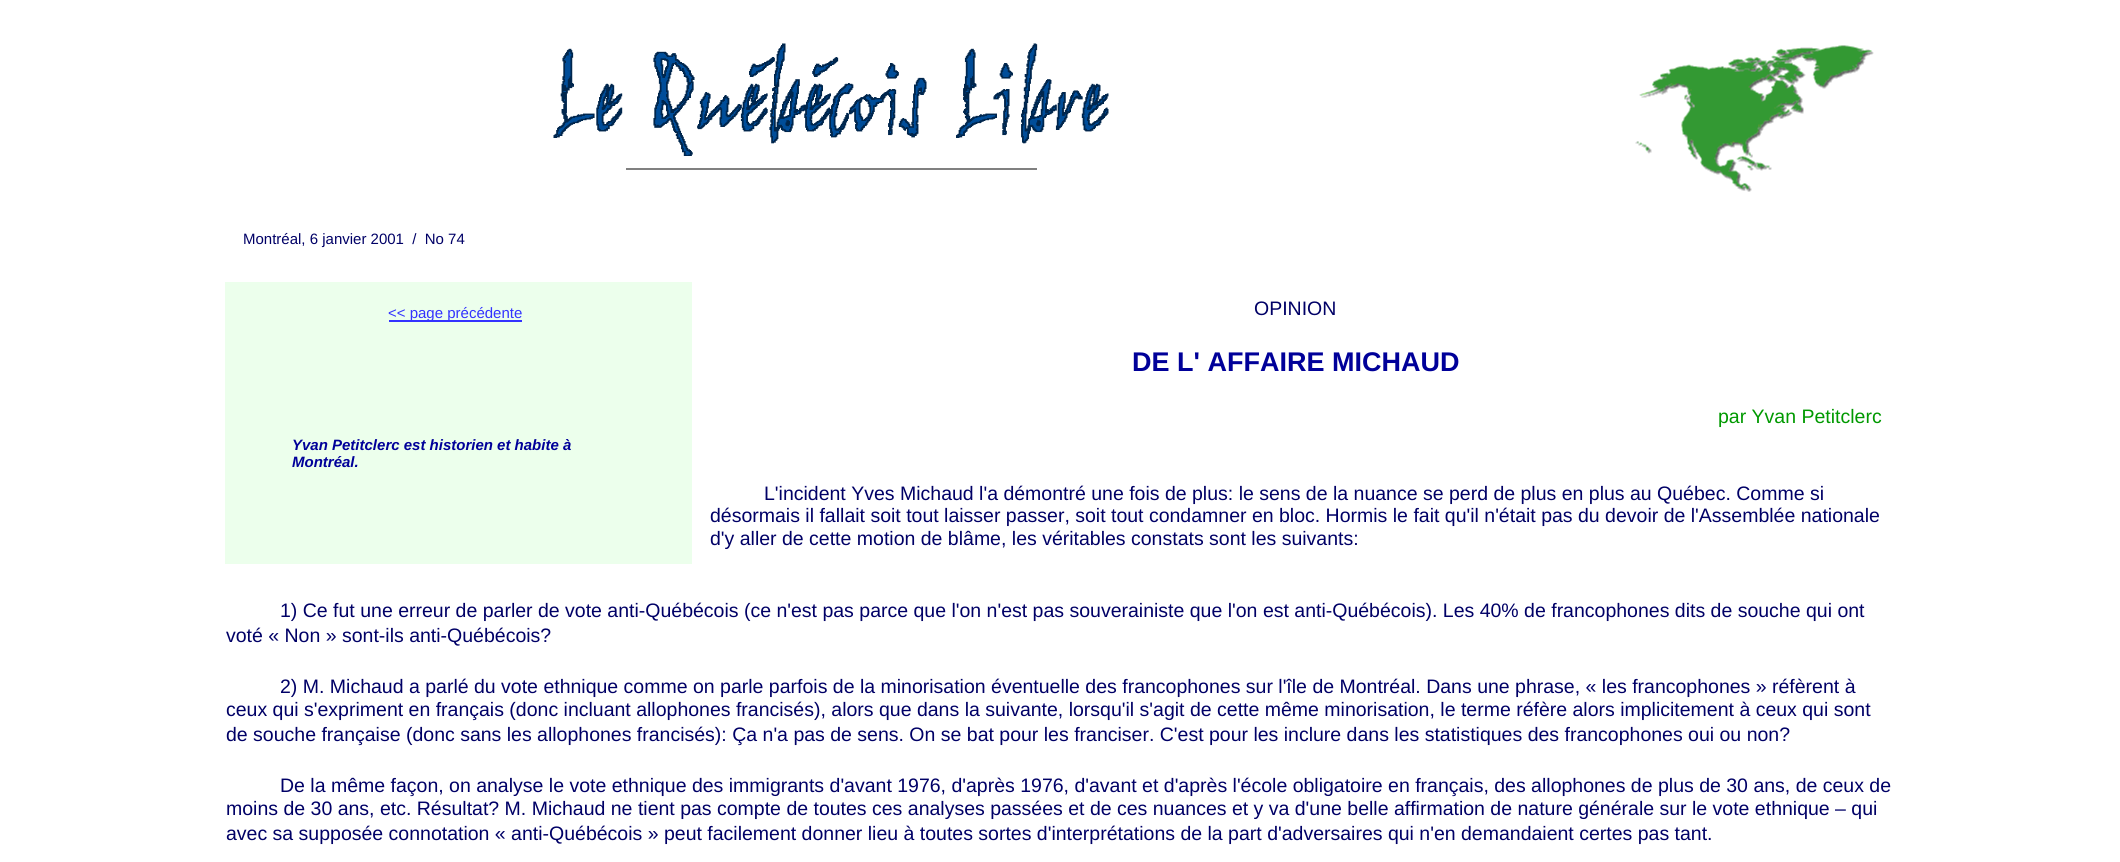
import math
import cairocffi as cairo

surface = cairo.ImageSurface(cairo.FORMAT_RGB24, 2120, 862)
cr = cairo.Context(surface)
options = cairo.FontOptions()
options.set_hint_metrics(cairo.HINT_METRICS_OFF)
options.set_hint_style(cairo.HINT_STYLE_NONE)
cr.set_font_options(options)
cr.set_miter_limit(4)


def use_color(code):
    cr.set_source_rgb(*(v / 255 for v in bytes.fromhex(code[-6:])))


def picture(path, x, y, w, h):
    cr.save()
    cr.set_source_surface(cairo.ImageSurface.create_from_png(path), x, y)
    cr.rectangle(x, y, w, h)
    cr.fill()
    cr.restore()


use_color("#ffffff")
cr.paint()
picture("img1.png", 553, 43, 556, 113)
use_color("#808080")
cr.rectangle(626, 168, 411, 2)
cr.fill()
picture("img2.png", 1635, 45, 239, 147)
cr.select_font_face("Liberation Sans")
cr.set_font_size(15)
use_color("#000066")
cr.move_to(243, 244)
cr.show_text("Montréal, 6 janvier 2001  /  No 74")
use_color("#ecffec")
cr.rectangle(225, 282, 467, 282)
cr.fill()
use_color("#3333ff")
cr.rectangle(389, 320, 133, 2)
cr.fill()
cr.move_to(388, 318)
cr.show_text("<< page précédente")
cr.select_font_face("Liberation Sans", cairo.FONT_SLANT_ITALIC, cairo.FONT_WEIGHT_BOLD)
use_color("#000099")
cr.move_to(292, 450)
cr.show_text("Yvan Petitclerc est historien et habite à")
cr.move_to(292, 467)
cr.show_text("Montréal.")
cr.select_font_face("Liberation Sans")
cr.set_font_size(19.5)
use_color("#000066")
cr.move_to(1254, 315)
cr.show_text("OPINION")
cr.select_font_face("Liberation Sans", cairo.FONT_SLANT_NORMAL, cairo.FONT_WEIGHT_BOLD)
cr.set_font_size(27)
use_color("#000099")
cr.move_to(1132, 371)
cr.show_text("DE L' AFFAIRE MICHAUD")
cr.select_font_face("Liberation Sans")
cr.set_font_size(19.5)
use_color("#009900")
cr.move_to(1718, 423)
cr.show_text("par Yvan Petitclerc")
use_color("#000066")
cr.move_to(764, 500)
cr.show_text("L'incident Yves Michaud l'a démontré une fois de plus: le sens de la nuance se perd de plus en plus au Québec. Comme si")
cr.move_to(710, 522)
cr.show_text("désormais il fallait soit tout laisser passer, soit tout condamner en bloc. Hormis le fait qu'il n'était pas du devoir de l'Assemblée nationale")
cr.move_to(710, 545)
cr.show_text("d'y aller de cette motion de blâme, les véritables constats sont les suivants:")
cr.move_to(280, 617)
cr.show_text("1) Ce fut une erreur de parler de vote anti-Québécois (ce n'est pas parce que l'on n'est pas souverainiste que l'on est anti-Québécois). Les 40% de francophones dits de souche qui ont")
cr.move_to(226, 642)
cr.show_text("voté « Non » sont-ils anti-Québécois?")
cr.move_to(280, 693)
cr.show_text("2) M. Michaud a parlé du vote ethnique comme on parle parfois de la minorisation éventuelle des francophones sur l'île de Montréal. Dans une phrase, « les francophones » réfèrent à")
cr.move_to(226, 716)
cr.show_text("ceux qui s'expriment en français (donc incluant allophones francisés), alors que dans la suivante, lorsqu'il s'agit de cette même minorisation, le terme réfère alors implicitement à ceux qui sont")
cr.move_to(226, 741)
cr.show_text("de souche française (donc sans les allophones francisés): Ça n'a pas de sens. On se bat pour les franciser. C'est pour les inclure dans les statistiques des francophones oui ou non?")
cr.move_to(280, 792)
cr.show_text("De la même façon, on analyse le vote ethnique des immigrants d'avant 1976, d'après 1976, d'avant et d'après l'école obligatoire en français, des allophones de plus de 30 ans, de ceux de")
cr.move_to(226, 815)
cr.show_text("moins de 30 ans, etc. Résultat? M. Michaud ne tient pas compte de toutes ces analyses passées et de ces nuances et y va d'une belle affirmation de nature générale sur le vote ethnique – qui")
cr.move_to(226, 840)
cr.show_text("avec sa supposée connotation « anti-Québécois » peut facilement donner lieu à toutes sortes d'interprétations de la part d'adversaires qui n'en demandaient certes pas tant.")
surface.write_to_png("result.png")
